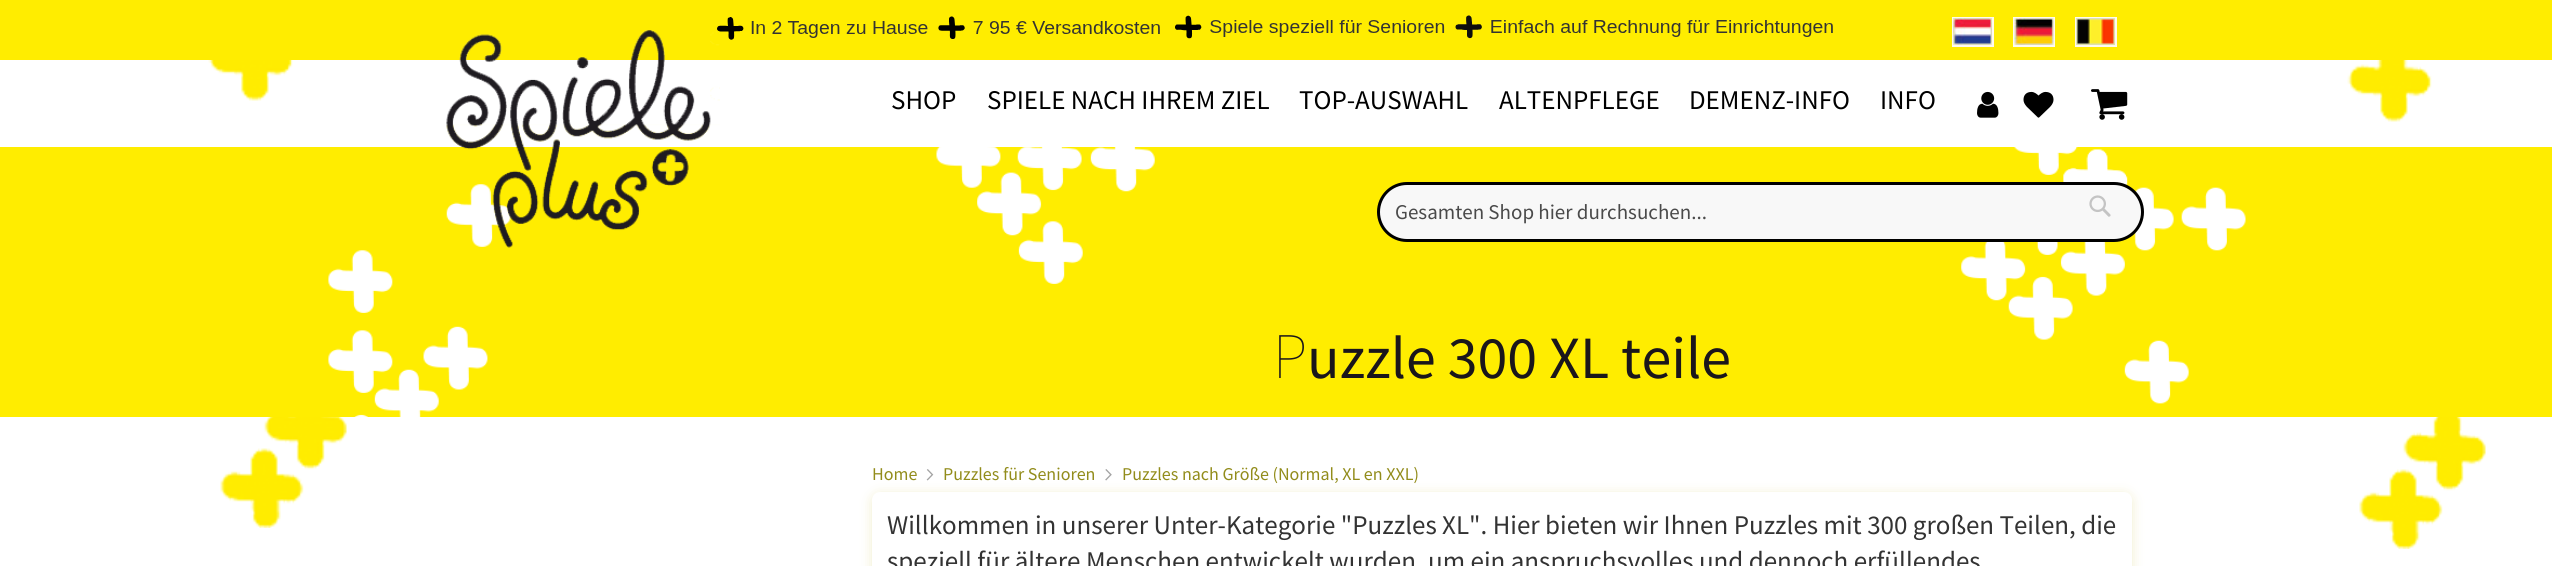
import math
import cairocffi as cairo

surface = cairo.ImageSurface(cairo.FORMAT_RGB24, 2552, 566)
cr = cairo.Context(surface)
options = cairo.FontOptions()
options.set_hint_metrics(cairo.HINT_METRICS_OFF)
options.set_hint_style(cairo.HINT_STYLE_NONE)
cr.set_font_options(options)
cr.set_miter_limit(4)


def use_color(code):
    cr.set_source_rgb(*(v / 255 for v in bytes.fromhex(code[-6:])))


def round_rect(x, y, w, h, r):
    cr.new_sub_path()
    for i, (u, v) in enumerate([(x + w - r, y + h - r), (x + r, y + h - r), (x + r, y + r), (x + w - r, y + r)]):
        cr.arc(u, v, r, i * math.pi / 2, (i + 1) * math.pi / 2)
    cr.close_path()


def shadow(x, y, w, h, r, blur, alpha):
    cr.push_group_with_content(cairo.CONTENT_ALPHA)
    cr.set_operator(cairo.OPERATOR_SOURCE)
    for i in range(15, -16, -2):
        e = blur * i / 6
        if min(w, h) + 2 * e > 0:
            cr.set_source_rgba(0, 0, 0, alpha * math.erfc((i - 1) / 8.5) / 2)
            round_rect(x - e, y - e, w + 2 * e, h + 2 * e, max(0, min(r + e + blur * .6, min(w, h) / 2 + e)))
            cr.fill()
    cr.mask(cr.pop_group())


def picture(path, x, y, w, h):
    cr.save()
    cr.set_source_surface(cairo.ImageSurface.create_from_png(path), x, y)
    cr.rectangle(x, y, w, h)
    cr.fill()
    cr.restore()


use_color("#ffffff")
cr.paint()
picture("img1.png", 208, 60, 2278, 489)
use_color("#ffed00")
cr.rectangle(0, 0, 2552, 60)
cr.fill()
picture("img2.png", 717, 15, 1116, 25)
cr.rectangle(1953, 18, 40, 28)
use_color("#fffaf0")
cr.stroke()
picture("img3.png", 1953, 18, 39, 27)
cr.rectangle(2014, 18, 40, 28)
cr.stroke()
picture("img4.png", 2014, 18, 40, 27)
cr.rectangle(2076, 18, 40, 28)
cr.stroke()
picture("img5.png", 2076, 18, 39, 27)
picture("img11.png", 0, 147, 2552, 270)
picture("img6.png", 446, 30, 274, 218)
cr.select_font_face("Source Sans Pro")
cr.set_font_size(27)
use_color("#000000")
cr.move_to(891, 109)
cr.show_text("SHOP")
cr.move_to(987, 109)
cr.show_text("SPIELE NACH IHREM ZIEL")
cr.move_to(1299, 109)
cr.show_text("TOP-AUSWAHL")
cr.move_to(1499, 109)
cr.show_text("ALTENPFLEGE")
cr.move_to(1689, 109)
cr.show_text("DEMENZ-INFO")
cr.move_to(1880, 109)
cr.show_text("INFO")
picture("img7.png", 1977, 91, 22, 27)
picture("img8.png", 2023, 91, 31, 27)
picture("img9.png", 2091, 89, 37, 31)
use_color("#f8f8f8")
round_rect(1378.5, 183.5, 764, 57, 28.5)
cr.fill_preserve()
use_color("#000000")
cr.set_line_width(3)
cr.stroke()
cr.set_font_size(21)
use_color("#4a4a4a")
cr.move_to(1395, 219)
cr.show_text("Gesamten Shop hier durchsuchen...")
picture("img10.png", 2089, 195, 22, 22)
cr.select_font_face("Noto Sans Thin")
cr.set_font_size(60)
use_color("#1a161b")
cr.move_to(1273, 378)
cr.show_text("P")
cr.select_font_face("Source Sans Pro")
cr.move_to(1307, 378)
cr.show_text("uzzle 300 XL teile")
use_color("#f2efce")
shadow(872, 494, 1260, 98, 8, 6, 1)
cr.set_font_size(18)
use_color("#928c1b")
cr.move_to(872, 480)
cr.show_text("Home")
picture("img12.png", 926, 469, 8, 12)
cr.move_to(943, 480)
cr.show_text("Puzzles für Senioren")
picture("img13.png", 1105, 469, 7, 12)
cr.move_to(1122, 480)
cr.show_text("Puzzles nach Größe (Normal, XL en XXL)")
use_color("#ffffff")
round_rect(872, 492, 1260, 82, 8)
cr.fill()
cr.set_font_size(27)
use_color("#333333")
cr.move_to(887, 534)
cr.show_text("Willkommen in unserer Unter-Kategorie \"Puzzles XL\". Hier bieten wir Ihnen Puzzles mit 300 großen Teilen, die")
cr.move_to(887, 570)
cr.show_text("speziell für ältere Menschen entwickelt wurden, um ein anspruchsvolles und dennoch erfüllendes")
surface.write_to_png("result.png")
